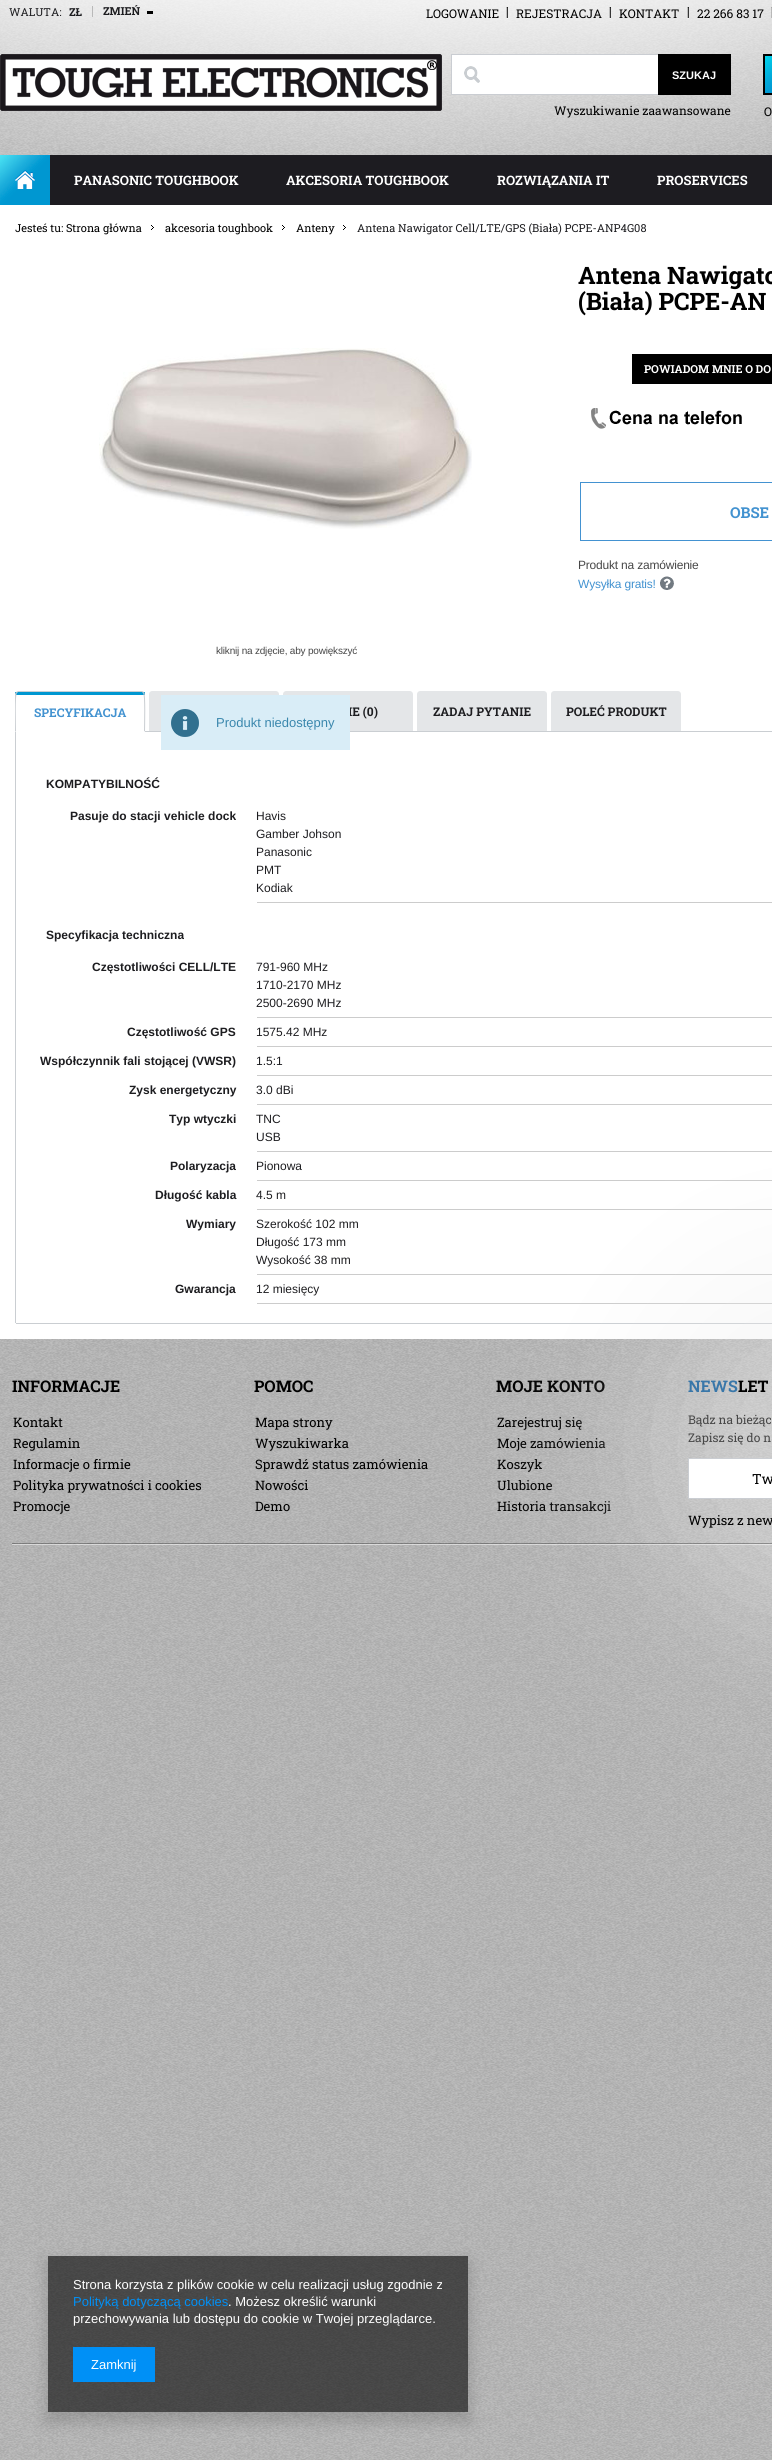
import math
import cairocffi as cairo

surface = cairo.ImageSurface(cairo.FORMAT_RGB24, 772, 2460)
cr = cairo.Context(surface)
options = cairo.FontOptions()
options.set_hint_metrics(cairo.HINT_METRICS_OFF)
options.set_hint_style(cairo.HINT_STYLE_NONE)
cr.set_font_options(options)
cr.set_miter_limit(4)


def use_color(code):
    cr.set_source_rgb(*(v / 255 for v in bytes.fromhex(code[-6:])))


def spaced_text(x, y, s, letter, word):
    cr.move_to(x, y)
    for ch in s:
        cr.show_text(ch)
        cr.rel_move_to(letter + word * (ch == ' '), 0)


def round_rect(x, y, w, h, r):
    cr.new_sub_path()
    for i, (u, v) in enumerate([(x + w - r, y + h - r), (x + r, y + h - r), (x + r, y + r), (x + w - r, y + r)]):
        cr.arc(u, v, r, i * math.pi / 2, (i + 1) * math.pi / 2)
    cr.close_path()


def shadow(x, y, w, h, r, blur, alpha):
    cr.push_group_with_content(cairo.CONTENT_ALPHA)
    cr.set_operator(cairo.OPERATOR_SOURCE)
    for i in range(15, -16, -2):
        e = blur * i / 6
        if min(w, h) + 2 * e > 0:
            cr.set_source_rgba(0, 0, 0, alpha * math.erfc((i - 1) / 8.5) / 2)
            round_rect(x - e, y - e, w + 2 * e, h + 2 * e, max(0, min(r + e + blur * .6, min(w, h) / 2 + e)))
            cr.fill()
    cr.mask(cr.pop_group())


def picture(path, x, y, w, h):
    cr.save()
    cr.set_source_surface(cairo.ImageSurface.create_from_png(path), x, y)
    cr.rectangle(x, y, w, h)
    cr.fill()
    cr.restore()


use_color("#ffffff")
cr.paint()
picture("img1.png", 0, 0, 772, 2460)
picture("img2.png", 0, 0, 772, 155)
use_color("#b9b9b9")
cr.rectangle(92, 6, 1, 11)
cr.fill()
cr.select_font_face("Roboto Slab")
cr.set_font_size(11)
use_color("#1d1d20")
cr.move_to(9, 16)
cr.show_text("WALUTA:")
cr.select_font_face("Roboto Slab", cairo.FONT_SLANT_NORMAL, cairo.FONT_WEIGHT_BOLD)
cr.move_to(69, 16)
cr.show_text("ZŁ")
use_color("#000000")
cr.rectangle(147, 11, 6, 3)
cr.fill()
use_color("#1d1d20")
cr.move_to(103, 15)
cr.show_text("ZMIEŃ")
cr.select_font_face("Roboto Slab")
cr.set_font_size(12)
use_color("#000000")
cr.move_to(426, 18)
cr.show_text("LOGOWANIE")
picture("img3.png", 506, 7, 2, 12)
cr.move_to(516, 18)
cr.show_text("REJESTRACJA")
picture("img4.png", 609, 7, 2, 12)
cr.move_to(619, 18)
cr.show_text("KONTAKT")
picture("img5.png", 687, 7, 2, 12)
cr.move_to(697, 18)
cr.show_text("22 266 83 17")
picture("img6.png", 771, 7, 1, 12)
picture("img7.png", 0, 54, 442, 57)
use_color("#ffffff")
cr.rectangle(452, 55, 206, 39)
cr.fill()
picture("img8.png", 464, 66, 16, 17)
use_color("#cacdd2")
cr.rectangle(451, 54, 207, 1)
cr.fill()
cr.rectangle(451, 94, 207, 1)
cr.fill()
cr.rectangle(451, 54, 1, 41)
cr.fill()
use_color("#000000")
cr.rectangle(658, 54, 73, 41)
cr.fill()
cr.select_font_face("Liberation Sans", cairo.FONT_SLANT_NORMAL, cairo.FONT_WEIGHT_BOLD)
cr.set_font_size(11)
use_color("#ffffff")
cr.move_to(672, 79)
cr.show_text("SZUKAJ")
cr.select_font_face("Roboto Slab")
cr.set_font_size(12)
use_color("#000000")
cr.move_to(554, 115)
cr.show_text("Wyszukiwanie zaawansowane")
cr.rectangle(764, 55, 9, 39)
cr.stroke()
picture("img9.png", 765, 56, 7, 37)
cr.move_to(764, 116)
cr.show_text("O")
use_color("#1d1c21")
cr.rectangle(50, 155, 722, 50)
cr.fill()
picture("img10.png", 0, 155, 50, 50)
cr.select_font_face("Roboto Slab", cairo.FONT_SLANT_NORMAL, cairo.FONT_WEIGHT_BOLD)
cr.set_font_size(13)
use_color("#ffffff")
cr.move_to(74, 185)
cr.show_text("PANASONIC TOUGHBOOK")
cr.move_to(286, 185)
cr.show_text("AKCESORIA TOUGHBOOK")
cr.move_to(497, 185)
cr.show_text("ROZWIĄZANIA IT")
cr.move_to(657, 185)
cr.show_text("PROSERVICES")
cr.rectangle(0, 205, 772, 1134)
cr.fill()
cr.select_font_face("Roboto Slab")
cr.set_font_size(11)
use_color("#000000")
cr.move_to(15, 232)
cr.show_text("Jesteś tu: Strona główna")
picture("img11.png", 151, 225, 3, 5)
cr.move_to(165, 232)
cr.show_text("akcesoria toughbook")
picture("img11.png", 282, 225, 3, 5)
cr.move_to(296, 232)
cr.show_text("Anteny")
picture("img11.png", 343, 225, 3, 5)
use_color("#1d1d20")
cr.move_to(357, 232)
cr.show_text("Antena Nawigator Cell/LTE/GPS (Biała) PCPE-ANP4G08")
cr.select_font_face("Roboto Slab", cairo.FONT_SLANT_NORMAL, cairo.FONT_WEIGHT_BOLD)
cr.set_font_size(24)
use_color("#000000")
cr.move_to(578, 284)
cr.show_text("Antena Nawigato")
cr.move_to(578, 310)
cr.show_text("(Biała) PCPE-AN")
cr.rectangle(632, 354, 140, 30)
cr.fill()
cr.set_font_size(11)
use_color("#ffffff")
cr.move_to(644, 373)
cr.show_text("POWIADOM MNIE O DO")
picture("img12.png", 591, 408, 151, 21)
cr.rectangle(580.5, 482.5, 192, 58)
use_color("#4392d1")
cr.set_line_width(1)
cr.stroke()
cr.set_font_size(15)
use_color("#4292d0")
cr.move_to(730, 518)
cr.show_text("OBSE")
cr.select_font_face("Liberation Sans")
cr.set_font_size(12)
use_color("#474747")
spaced_text(578, 569, "Produkt na zamówienie", -0.2, 0)
use_color("#4292d0")
spaced_text(578, 588, "Wysyłka gratis!", -0.2, 0)
picture("img13.png", 660, 576, 14, 14)
picture("img14.png", 99, 348, 373, 181)
cr.set_font_size(10)
use_color("#474747")
spaced_text(216, 654, "kliknij na zdjęcie, aby powiększyć", -0.2, 0)
use_color("#caced2")
cr.rectangle(145, 731, 627, 1)
cr.fill()
use_color("#0097d1")
cr.rectangle(15, 692, 130, 3)
cr.fill()
use_color("#caced2")
cr.new_path()
cr.move_to(18, 691)
cr.line_to(16, 692)
cr.line_to(17, 693)
cr.line_to(18, 692)
cr.line_to(142, 692)
cr.line_to(143, 693)
cr.line_to(144, 692)
cr.line_to(142, 691)
cr.close_path()
cr.fill()
cr.new_path()
cr.move_to(145, 732)
cr.curve_to(145, 727, 146, 694, 144, 692)
cr.line_to(143, 693)
cr.curve_to(145, 694, 144, 726, 144, 731)
cr.close_path()
cr.fill()
use_color("#ffffff")
cr.new_path()
cr.move_to(145, 732)
cr.line_to(144, 731)
cr.line_to(16, 731)
cr.line_to(15, 732)
cr.close_path()
cr.fill()
use_color("#caced2")
cr.new_path()
cr.move_to(15, 732)
cr.line_to(16, 731)
cr.curve_to(16, 726, 15, 694, 17, 693)
cr.line_to(16, 692)
cr.line_to(15, 694)
cr.close_path()
cr.fill()
cr.select_font_face("Roboto Slab", cairo.FONT_SLANT_NORMAL, cairo.FONT_WEIGHT_BOLD)
cr.set_font_size(12)
use_color("#4292d0")
cr.move_to(34, 717)
cr.show_text("SPECYFIKACJA")
use_color("#e4e6e8")
cr.new_path()
cr.move_to(152, 691)
cr.line_to(276, 691)
cr.curve_to(277.5, 691, 279, 692.5, 279, 694)
cr.line_to(279, 732)
cr.line_to(149, 732)
cr.line_to(149, 694)
cr.curve_to(149, 692.5, 150.5, 691, 152, 691)
cr.close_path()
cr.fill()
use_color("#caced2")
cr.rectangle(149, 731, 12, 1)
cr.fill()
use_color("#e4e6e8")
cr.new_path()
cr.move_to(286, 691)
cr.line_to(410, 691)
cr.curve_to(411.5, 691, 413, 692.5, 413, 694)
cr.line_to(413, 732)
cr.line_to(283, 732)
cr.line_to(283, 694)
cr.curve_to(283, 692.5, 284.5, 691, 286, 691)
cr.close_path()
cr.fill()
use_color("#caced2")
cr.rectangle(350, 731, 63, 1)
cr.fill()
use_color("#1d1d20")
cr.move_to(348, 716)
cr.show_text("IE (0)")
use_color("#e4e6e8")
cr.new_path()
cr.move_to(420, 691)
cr.line_to(544, 691)
cr.curve_to(545.5, 691, 547, 692.5, 547, 694)
cr.line_to(547, 732)
cr.line_to(417, 732)
cr.line_to(417, 694)
cr.curve_to(417, 692.5, 418.5, 691, 420, 691)
cr.close_path()
cr.fill()
use_color("#caced2")
cr.rectangle(417, 731, 130, 1)
cr.fill()
use_color("#1d1d20")
cr.move_to(433, 716)
cr.show_text("ZADAJ PYTANIE")
use_color("#e4e6e8")
cr.new_path()
cr.move_to(554, 691)
cr.line_to(678, 691)
cr.curve_to(679.5, 691, 681, 692.5, 681, 694)
cr.line_to(681, 732)
cr.line_to(551, 732)
cr.line_to(551, 694)
cr.curve_to(551, 692.5, 552.5, 691, 554, 691)
cr.close_path()
cr.fill()
use_color("#caced2")
cr.rectangle(551, 731, 130, 1)
cr.fill()
use_color("#1d1d20")
cr.move_to(566, 716)
cr.show_text("POLEĆ PRODUKT")
use_color("#d9edf7")
cr.rectangle(161, 695, 189, 55)
cr.fill()
picture("img15.png", 171, 709, 28, 28)
cr.select_font_face("Liberation Sans")
cr.set_font_size(13)
use_color("#3a87ad")
cr.move_to(216, 727)
cr.show_text("Produkt niedostępny")
use_color("#caced2")
cr.rectangle(16, 1323, 756, 1)
cr.fill()
cr.rectangle(15, 732, 1, 591)
cr.fill()
cr.select_font_face("Liberation Sans", cairo.FONT_SLANT_NORMAL, cairo.FONT_WEIGHT_BOLD)
cr.set_font_size(12)
use_color("#1d1d20")
cr.move_to(46, 788)
cr.show_text("KOMPATYBILNOŚĆ")
use_color("#cccccc")
cr.rectangle(256, 902, 516, 1)
cr.fill()
use_color("#ffffff")
cr.rectangle(256, 902, 1, 1)
cr.fill()
use_color("#1d1d20")
cr.move_to(70, 820)
cr.show_text("Pasuje do stacji vehicle dock")
cr.select_font_face("Liberation Sans")
cr.move_to(256, 820)
cr.show_text("Havis")
cr.move_to(256, 838)
cr.show_text("Gamber Johson")
cr.move_to(256, 856)
cr.show_text("Panasonic")
cr.move_to(256, 874)
cr.show_text("PMT")
cr.move_to(256, 892)
cr.show_text("Kodiak")
cr.select_font_face("Liberation Sans", cairo.FONT_SLANT_NORMAL, cairo.FONT_WEIGHT_BOLD)
cr.move_to(46, 939)
cr.show_text("Specyfikacja techniczna")
use_color("#cccccc")
cr.rectangle(256, 1017, 516, 1)
cr.fill()
use_color("#ffffff")
cr.rectangle(256, 1017, 1, 1)
cr.fill()
use_color("#1d1d20")
cr.move_to(92, 971)
cr.show_text("Częstotliwości CELL/LTE")
cr.select_font_face("Liberation Sans")
cr.move_to(256, 971)
cr.show_text("791-960 MHz")
cr.move_to(256, 989)
cr.show_text("1710-2170 MHz")
cr.move_to(256, 1007)
cr.show_text("2500-2690 MHz")
use_color("#cccccc")
cr.rectangle(256, 1046, 516, 1)
cr.fill()
use_color("#ffffff")
cr.rectangle(256, 1046, 1, 1)
cr.fill()
cr.select_font_face("Liberation Sans", cairo.FONT_SLANT_NORMAL, cairo.FONT_WEIGHT_BOLD)
use_color("#1d1d20")
cr.move_to(127, 1036)
cr.show_text("Częstotliwość GPS")
cr.select_font_face("Liberation Sans")
cr.move_to(256, 1036)
cr.show_text("1575.42 MHz")
use_color("#cccccc")
cr.rectangle(256, 1075, 516, 1)
cr.fill()
use_color("#ffffff")
cr.rectangle(256, 1075, 1, 1)
cr.fill()
cr.select_font_face("Liberation Sans", cairo.FONT_SLANT_NORMAL, cairo.FONT_WEIGHT_BOLD)
use_color("#1d1d20")
cr.move_to(40, 1065)
cr.show_text("Współczynnik fali stojącej (VWSR)")
cr.select_font_face("Liberation Sans")
cr.move_to(256, 1065)
cr.show_text("1.5:1")
use_color("#cccccc")
cr.rectangle(256, 1104, 516, 1)
cr.fill()
use_color("#ffffff")
cr.rectangle(256, 1104, 1, 1)
cr.fill()
cr.select_font_face("Liberation Sans", cairo.FONT_SLANT_NORMAL, cairo.FONT_WEIGHT_BOLD)
use_color("#1d1d20")
cr.move_to(129, 1094)
cr.show_text("Zysk energetyczny")
cr.select_font_face("Liberation Sans")
cr.move_to(256, 1094)
cr.show_text("3.0 dBi")
use_color("#cccccc")
cr.rectangle(256, 1151, 516, 1)
cr.fill()
use_color("#ffffff")
cr.rectangle(256, 1151, 1, 1)
cr.fill()
cr.select_font_face("Liberation Sans", cairo.FONT_SLANT_NORMAL, cairo.FONT_WEIGHT_BOLD)
use_color("#1d1d20")
cr.move_to(169, 1123)
cr.show_text("Typ wtyczki")
cr.select_font_face("Liberation Sans")
cr.move_to(256, 1123)
cr.show_text("TNC")
cr.move_to(256, 1141)
cr.show_text("USB")
use_color("#cccccc")
cr.rectangle(256, 1180, 516, 1)
cr.fill()
use_color("#ffffff")
cr.rectangle(256, 1180, 1, 1)
cr.fill()
cr.select_font_face("Liberation Sans", cairo.FONT_SLANT_NORMAL, cairo.FONT_WEIGHT_BOLD)
use_color("#1d1d20")
cr.move_to(170, 1170)
cr.show_text("Polaryzacja")
cr.select_font_face("Liberation Sans")
cr.move_to(256, 1170)
cr.show_text("Pionowa")
use_color("#cccccc")
cr.rectangle(256, 1209, 516, 1)
cr.fill()
use_color("#ffffff")
cr.rectangle(256, 1209, 1, 1)
cr.fill()
cr.select_font_face("Liberation Sans", cairo.FONT_SLANT_NORMAL, cairo.FONT_WEIGHT_BOLD)
use_color("#1d1d20")
cr.move_to(155, 1199)
cr.show_text("Długość kabla")
cr.select_font_face("Liberation Sans")
cr.move_to(256, 1199)
cr.show_text("4.5 m")
use_color("#cccccc")
cr.rectangle(256, 1274, 516, 1)
cr.fill()
use_color("#ffffff")
cr.rectangle(256, 1274, 1, 1)
cr.fill()
cr.select_font_face("Liberation Sans", cairo.FONT_SLANT_NORMAL, cairo.FONT_WEIGHT_BOLD)
use_color("#1d1d20")
cr.move_to(186, 1228)
cr.show_text("Wymiary")
cr.select_font_face("Liberation Sans")
cr.move_to(256, 1228)
cr.show_text("Szerokość 102 mm")
cr.move_to(256, 1246)
cr.show_text("Długość 173 mm")
cr.move_to(256, 1264)
cr.show_text("Wysokość 38 mm")
use_color("#cccccc")
cr.rectangle(256, 1303, 516, 1)
cr.fill()
use_color("#ffffff")
cr.rectangle(256, 1303, 1, 1)
cr.fill()
cr.select_font_face("Liberation Sans", cairo.FONT_SLANT_NORMAL, cairo.FONT_WEIGHT_BOLD)
use_color("#1d1d20")
cr.move_to(175, 1293)
cr.show_text("Gwarancja")
cr.select_font_face("Liberation Sans")
cr.move_to(256, 1293)
cr.show_text("12 miesięcy")
cr.select_font_face("Roboto Slab", cairo.FONT_SLANT_NORMAL, cairo.FONT_WEIGHT_BOLD)
cr.set_font_size(16)
use_color("#000000")
cr.move_to(12, 1392)
cr.show_text("INFORMACJE")
cr.select_font_face("Roboto Slab")
cr.set_font_size(13)
cr.move_to(13, 1427)
cr.show_text("Kontakt")
cr.move_to(13, 1448)
cr.show_text("Regulamin")
cr.move_to(13, 1469)
cr.show_text("Informacje o firmie")
cr.move_to(13, 1490)
cr.show_text("Polityka prywatności i cookies")
cr.move_to(13, 1511)
cr.show_text("Promocje")
cr.select_font_face("Roboto Slab", cairo.FONT_SLANT_NORMAL, cairo.FONT_WEIGHT_BOLD)
cr.set_font_size(16)
cr.move_to(254, 1392)
cr.show_text("POMOC")
cr.select_font_face("Roboto Slab")
cr.set_font_size(13)
cr.move_to(255, 1427)
cr.show_text("Mapa strony")
cr.move_to(255, 1448)
cr.show_text("Wyszukiwarka")
cr.move_to(255, 1469)
cr.show_text("Sprawdź status zamówienia")
cr.move_to(255, 1490)
cr.show_text("Nowości")
cr.move_to(255, 1511)
cr.show_text("Demo")
cr.select_font_face("Roboto Slab", cairo.FONT_SLANT_NORMAL, cairo.FONT_WEIGHT_BOLD)
cr.set_font_size(16)
cr.move_to(496, 1392)
cr.show_text("MOJE KONTO")
cr.select_font_face("Roboto Slab")
cr.set_font_size(13)
cr.move_to(497, 1427)
cr.show_text("Zarejestruj się")
cr.move_to(497, 1448)
cr.show_text("Moje zamówienia")
cr.move_to(497, 1469)
cr.show_text("Koszyk")
cr.move_to(497, 1490)
cr.show_text("Ulubione")
cr.move_to(497, 1511)
cr.show_text("Historia transakcji")
use_color("#ebebeb")
shadow(664, 1285, 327, 327, 163.5, 81.5, 0.5)
cr.select_font_face("Roboto Slab", cairo.FONT_SLANT_NORMAL, cairo.FONT_WEIGHT_BOLD)
cr.set_font_size(16)
use_color("#3977a9")
cr.move_to(688, 1392)
cr.show_text("NEWS")
use_color("#000000")
cr.move_to(738, 1392)
cr.show_text("LET")
cr.select_font_face("Roboto Slab")
cr.set_font_size(12)
use_color("#474747")
cr.move_to(688, 1424)
cr.show_text("Bądz na bieżąc")
cr.move_to(688, 1442)
cr.show_text("Zapisz się do n")
use_color("#ffffff")
cr.rectangle(689, 1459, 83, 39)
cr.fill()
use_color("#cacdd2")
cr.rectangle(688, 1458, 84, 1)
cr.fill()
cr.rectangle(688, 1498, 84, 1)
cr.fill()
cr.rectangle(688, 1458, 1, 41)
cr.fill()
cr.set_font_size(14)
use_color("#000000")
cr.move_to(752, 1484)
cr.show_text("Tw")
cr.set_font_size(13)
cr.move_to(688, 1525)
cr.show_text("Wypisz z new")
picture("img16.png", 12, 1543, 760, 2)
cr.save()
cr.set_fill_rule(cairo.FILL_RULE_EVEN_ODD)
cr.new_path()
cr.move_to(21, 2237)
cr.line_to(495, 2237)
cr.line_to(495, 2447)
cr.line_to(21, 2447)
cr.close_path()
cr.move_to(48, 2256)
cr.line_to(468, 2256)
cr.line_to(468, 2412)
cr.line_to(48, 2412)
cr.close_path()
cr.clip()
use_color("#000000")
shadow(45, 2261, 426, 162, 0, 7.5, 0.15)
cr.restore()
cr.set_source_rgba(0, 0, 0, 0.6)
cr.rectangle(48, 2256, 420, 156)
cr.fill()
cr.select_font_face("Liberation Sans")
use_color("#ffffff")
cr.move_to(73, 2289)
cr.show_text("Strona korzysta z plików cookie w celu realizacji usług zgodnie z")
use_color("#0090f6")
cr.move_to(73, 2306)
cr.show_text("Polityką dotyczącą cookies")
use_color("#ffffff")
cr.move_to(228, 2306)
cr.show_text(". Możesz określić warunki")
cr.move_to(73, 2323)
cr.show_text("przechowywania lub dostępu do cookie w Twojej przeglądarce.")
use_color("#0090f6")
cr.rectangle(73, 2347, 82, 35)
cr.fill()
use_color("#ffffff")
cr.move_to(91, 2369)
cr.show_text("Zamknij")
surface.write_to_png("result.png")
